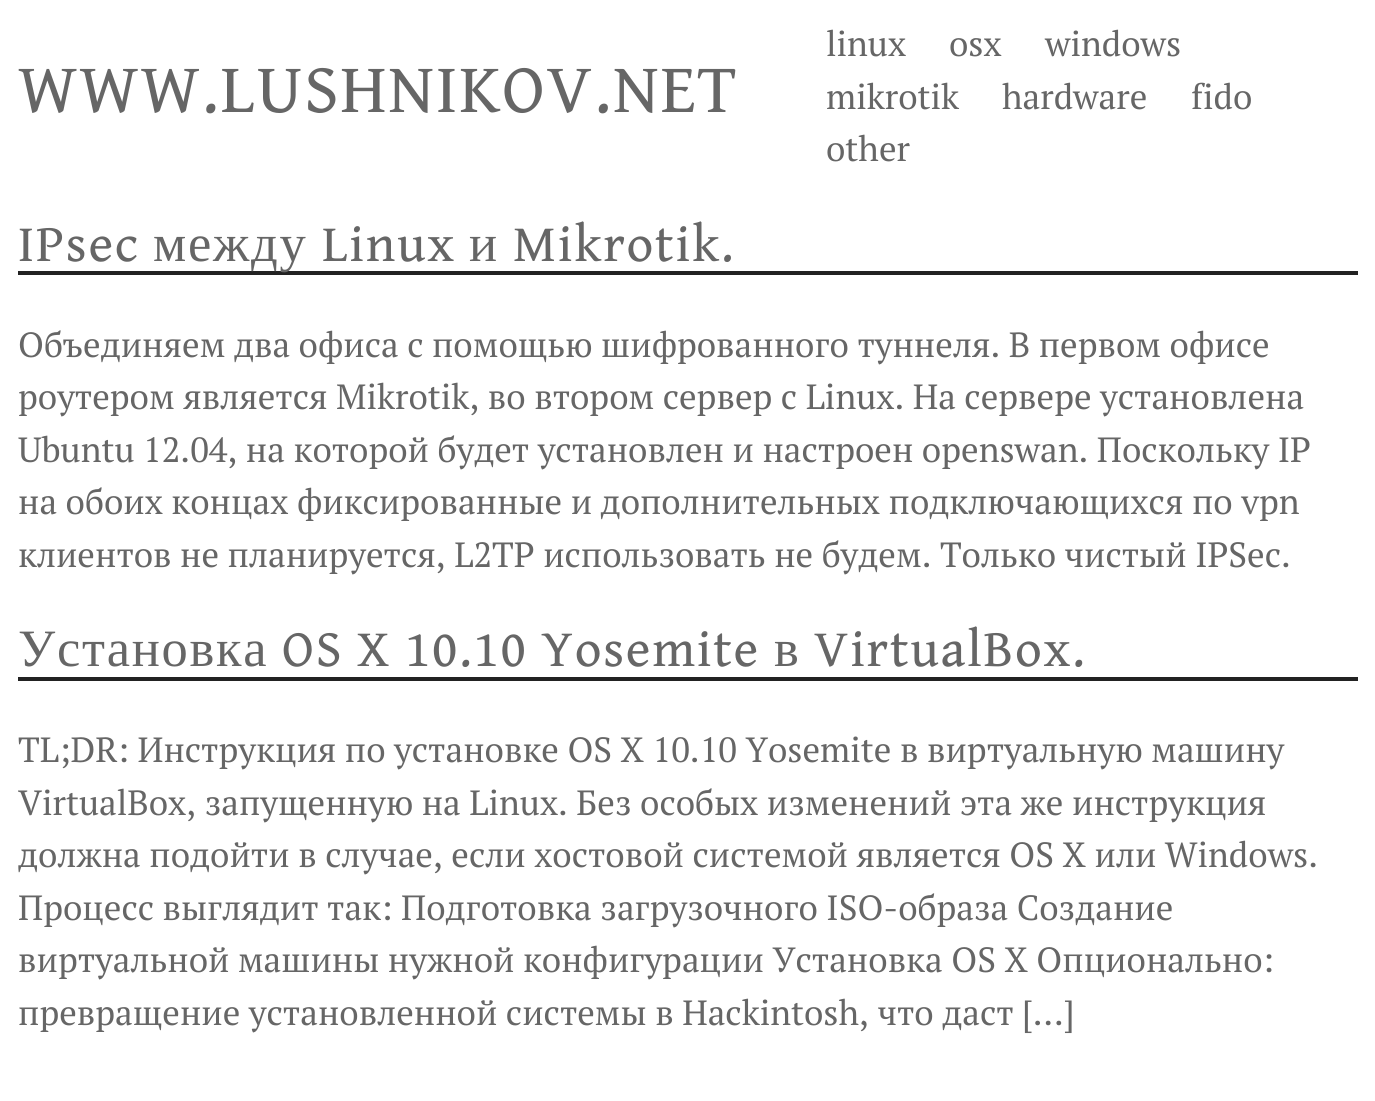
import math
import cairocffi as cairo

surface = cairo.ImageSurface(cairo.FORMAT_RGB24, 1375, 1101)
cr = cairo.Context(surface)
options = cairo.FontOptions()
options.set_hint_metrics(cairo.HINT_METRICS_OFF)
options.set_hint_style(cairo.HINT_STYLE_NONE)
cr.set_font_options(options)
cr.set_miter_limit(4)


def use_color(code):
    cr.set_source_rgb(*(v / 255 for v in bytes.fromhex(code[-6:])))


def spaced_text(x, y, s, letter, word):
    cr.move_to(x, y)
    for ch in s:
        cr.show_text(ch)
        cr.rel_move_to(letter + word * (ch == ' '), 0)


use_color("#ffffff")
cr.paint()
cr.select_font_face("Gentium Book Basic")
cr.set_font_size(70)
use_color("#666666")
spaced_text(18, 112, "WWW.LUSHNIKOV.NET", 1.75, 0)
cr.select_font_face("PT Serif")
cr.set_font_size(35)
cr.move_to(826, 56)
cr.show_text("linux")
cr.move_to(949, 56)
cr.show_text("osx")
cr.move_to(1045, 56)
cr.show_text("windows")
cr.move_to(826, 109)
cr.show_text("mikrotik")
cr.move_to(1002, 109)
cr.show_text("hardware")
cr.move_to(1191, 109)
cr.show_text("fido")
cr.move_to(826, 161)
cr.show_text("other")
use_color("#222222")
cr.rectangle(18, 271, 1340, 4)
cr.fill()
cr.select_font_face("Gentium Book Basic")
cr.set_font_size(52.5)
use_color("#666666")
spaced_text(18, 261, "IPsec", 1.75, 0)
cr.select_font_face("Liberation Serif")
spaced_text(153, 261, "между", 1.75, 0)
cr.select_font_face("Gentium Book Basic")
spaced_text(322, 261, "Linux", 1.75, 0)
cr.select_font_face("Liberation Serif")
spaced_text(469, 261, "и", 1.75, 0)
cr.select_font_face("Gentium Book Basic")
spaced_text(513, 261, "Mikrotik.", 1.75, 0)
cr.select_font_face("PT Serif")
cr.set_font_size(35)
cr.move_to(18, 357)
cr.show_text("Объединяем два офиса с помощью шифрованного туннеля. В первом офисе")
cr.move_to(18, 409)
cr.show_text("роутером является Mikrotik, во втором сервер с Linux. На сервере установлена")
cr.move_to(18, 462)
cr.show_text("Ubuntu 12.04, на которой будет установлен и настроен openswan. Поскольку IP")
cr.move_to(18, 514)
cr.show_text("на обоих концах фиксированные и дополнительных подключающихся по vpn")
cr.move_to(18, 567)
cr.show_text("клиентов не планируется, L2TP использовать не будем. Только чистый IPSec.")
use_color("#222222")
cr.rectangle(18, 677, 1340, 4)
cr.fill()
cr.select_font_face("Liberation Serif")
cr.set_font_size(52.5)
use_color("#666666")
spaced_text(18, 666, "Установка", 1.75, 0)
cr.select_font_face("Gentium Book Basic")
spaced_text(282, 666, "OS X 10.10 Yosemite", 1.75, 0)
cr.select_font_face("Liberation Serif")
spaced_text(774, 666, "в", 1.75, 0)
cr.select_font_face("Gentium Book Basic")
spaced_text(814, 666, "VirtualBox.", 1.75, 0)
cr.select_font_face("PT Serif")
cr.set_font_size(35)
cr.move_to(18, 762)
cr.show_text("TL;DR: Инструкция по установке OS X 10.10 Yosemite в виртуальную машину")
cr.move_to(18, 815)
cr.show_text("VirtualBox, запущенную на Linux. Без особых изменений эта же инструкция")
cr.move_to(18, 867)
cr.show_text("должна подойти в случае, если хостовой системой является OS X или Windows.")
cr.move_to(18, 920)
cr.show_text("Процесс выглядит так: Подготовка загрузочного ISO-образа Создание")
cr.move_to(18, 972)
cr.show_text("виртуальной машины нужной конфигурации Установка OS X Опционально:")
cr.move_to(18, 1025)
cr.show_text("превращение установленной системы в Hackintosh, что даст […]")
surface.write_to_png("result.png")
